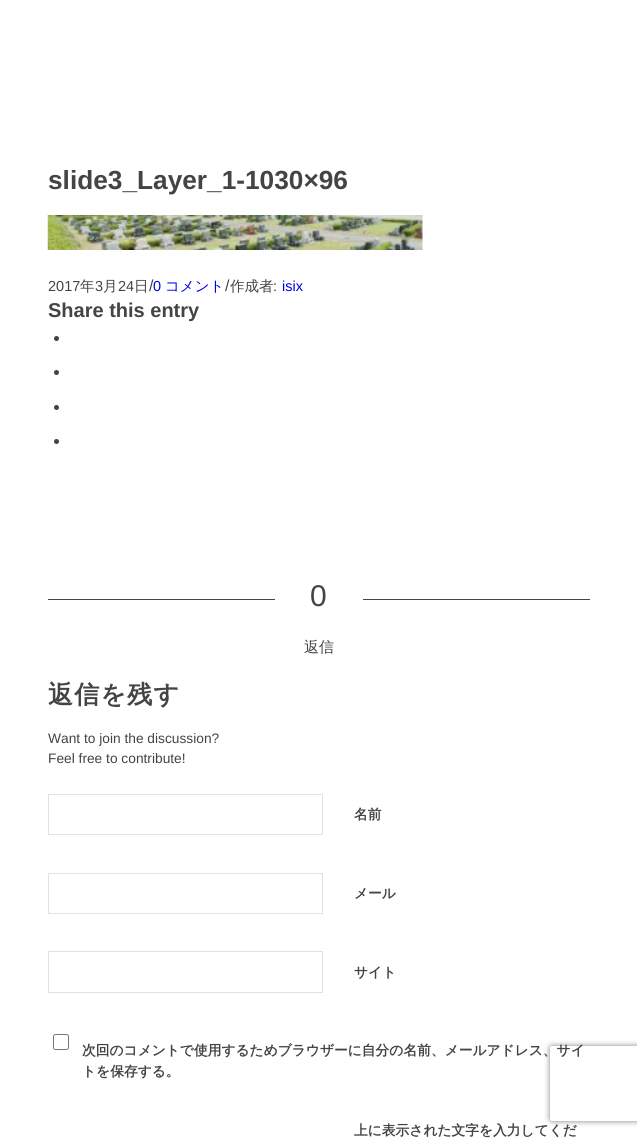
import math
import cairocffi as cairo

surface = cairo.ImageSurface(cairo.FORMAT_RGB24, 637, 1138)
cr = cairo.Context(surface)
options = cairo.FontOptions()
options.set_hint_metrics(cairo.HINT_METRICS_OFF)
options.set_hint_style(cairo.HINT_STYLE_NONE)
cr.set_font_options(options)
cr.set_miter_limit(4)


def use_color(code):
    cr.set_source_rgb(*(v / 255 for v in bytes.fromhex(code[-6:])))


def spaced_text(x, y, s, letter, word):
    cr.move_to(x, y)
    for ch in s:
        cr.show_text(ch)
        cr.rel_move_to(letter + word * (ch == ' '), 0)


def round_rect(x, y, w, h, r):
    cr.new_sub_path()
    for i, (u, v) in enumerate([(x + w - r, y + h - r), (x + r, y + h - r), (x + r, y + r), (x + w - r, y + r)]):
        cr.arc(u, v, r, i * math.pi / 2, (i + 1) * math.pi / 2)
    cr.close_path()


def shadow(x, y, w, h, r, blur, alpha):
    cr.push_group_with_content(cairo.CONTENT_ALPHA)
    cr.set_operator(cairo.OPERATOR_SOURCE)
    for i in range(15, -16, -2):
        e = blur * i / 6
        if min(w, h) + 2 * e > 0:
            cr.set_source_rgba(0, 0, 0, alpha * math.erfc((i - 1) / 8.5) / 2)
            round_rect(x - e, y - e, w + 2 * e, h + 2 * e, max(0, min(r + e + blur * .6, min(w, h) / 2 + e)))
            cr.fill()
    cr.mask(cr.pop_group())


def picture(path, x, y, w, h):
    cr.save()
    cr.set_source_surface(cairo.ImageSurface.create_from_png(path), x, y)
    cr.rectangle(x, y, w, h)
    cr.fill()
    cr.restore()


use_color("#ffffff")
cr.paint()
cr.select_font_face("Liberation Sans", cairo.FONT_SLANT_NORMAL, cairo.FONT_WEIGHT_BOLD)
cr.set_font_size(26.25)
use_color("#444444")
cr.move_to(48, 189)
cr.show_text("slide3_Layer_1-1030×96")
picture("img1.png", 47, 215, 376, 35)
cr.select_font_face("Liberation Sans")
cr.set_font_size(14.5)
cr.move_to(48, 291)
cr.show_text("2017")
cr.select_font_face("WenQuanYi Zen Hei Medium")
cr.move_to(80, 291)
cr.show_text("年")
cr.select_font_face("Liberation Sans")
cr.move_to(95, 291)
cr.show_text("3")
cr.select_font_face("WenQuanYi Zen Hei Medium")
cr.move_to(103, 291)
cr.show_text("月")
cr.select_font_face("Liberation Sans")
cr.move_to(118, 291)
cr.show_text("24")
cr.select_font_face("WenQuanYi Zen Hei Medium")
cr.move_to(134, 291)
cr.show_text("日")
cr.select_font_face("Liberation Sans")
cr.set_font_size(16)
cr.move_to(149, 291)
cr.show_text("/")
cr.set_font_size(14.5)
use_color("#0000ee")
cr.move_to(153, 291)
cr.show_text("0")
cr.select_font_face("WenQuanYi Zen Hei Medium")
cr.move_to(165, 291)
cr.show_text("コメント")
cr.select_font_face("Liberation Sans")
cr.set_font_size(16)
use_color("#444444")
cr.move_to(225, 291)
cr.show_text("/")
cr.select_font_face("WenQuanYi Zen Hei Medium")
cr.set_font_size(14.5)
cr.move_to(230, 291)
cr.show_text("作成者")
cr.select_font_face("Liberation Sans")
cr.move_to(273, 291)
cr.show_text(":")
use_color("#0000ee")
cr.move_to(282, 291)
cr.show_text("isix")
cr.select_font_face("Liberation Sans", cairo.FONT_SLANT_NORMAL, cairo.FONT_WEIGHT_BOLD)
cr.set_font_size(20)
use_color("#444444")
cr.move_to(48, 317)
cr.show_text("Share this entry")
cr.new_path()
cr.arc(56.5, 338.5, 2.5, 0, 2 * math.pi)
cr.fill()
cr.arc(56.5, 372.5, 2.5, 0, 2 * math.pi)
cr.fill()
cr.arc(56.5, 407.5, 2.5, 0, 2 * math.pi)
cr.fill()
cr.arc(56.5, 441.5, 2.5, 0, 2 * math.pi)
cr.fill()
cr.rectangle(48, 599, 227, 1)
cr.fill()
cr.select_font_face("Liberation Sans")
cr.set_font_size(30)
cr.move_to(310, 606)
cr.show_text("0")
cr.rectangle(363, 599, 227, 1)
cr.fill()
cr.select_font_face("WenQuanYi Zen Hei Medium")
cr.set_font_size(15)
cr.move_to(304, 652)
cr.show_text("返信")
cr.select_font_face("WenQuanYi Zen Hei", cairo.FONT_SLANT_NORMAL, cairo.FONT_WEIGHT_BOLD)
cr.set_font_size(25)
spaced_text(48, 703, "返信を残す", 1.25, 0)
cr.select_font_face("Liberation Sans")
cr.set_font_size(13.75)
cr.move_to(48, 743)
cr.show_text("Want to join the discussion?")
cr.move_to(48, 763)
cr.show_text("Feel free to contribute!")
cr.rectangle(48.5, 794.5, 274, 40)
use_color("#e1e1e1")
cr.set_line_width(1)
cr.stroke()
cr.select_font_face("WenQuanYi Zen Hei", cairo.FONT_SLANT_NORMAL, cairo.FONT_WEIGHT_BOLD)
use_color("#444444")
cr.move_to(354, 819)
cr.show_text("名前")
cr.rectangle(48.5, 873.5, 274, 40)
use_color("#e1e1e1")
cr.stroke()
use_color("#444444")
cr.move_to(354, 898)
cr.show_text("メール")
cr.rectangle(48.5, 951.5, 274, 41)
use_color("#e1e1e1")
cr.stroke()
use_color("#444444")
cr.move_to(354, 977)
cr.show_text("サイト")
round_rect(53.5, 1034.5, 15, 15, 2)
use_color("#767676")
cr.stroke()
cr.save()
cr.set_fill_rule(cairo.FILL_RULE_EVEN_ODD)
cr.new_path()
cr.move_to(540, 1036)
cr.line_to(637, 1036)
cr.line_to(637, 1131)
cr.line_to(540, 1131)
cr.close_path()
cr.move_to(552.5, 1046)
cr.line_to(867.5, 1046)
cr.curve_to(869, 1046, 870, 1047, 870, 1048.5)
cr.line_to(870, 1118.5)
cr.curve_to(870, 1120, 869, 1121, 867.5, 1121)
cr.line_to(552.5, 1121)
cr.curve_to(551, 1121, 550, 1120, 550, 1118.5)
cr.line_to(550, 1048.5)
cr.curve_to(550, 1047, 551, 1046, 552.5, 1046)
cr.close_path()
cr.clip()
use_color("#808080")
shadow(550, 1046, 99, 75, 2.5, 3, 1)
cr.restore()
use_color("#444444")
cr.move_to(82, 1055)
cr.show_text("次回のコメントで使用するためブラウザーに自分の名前、メールアドレス、サイ")
cr.move_to(82, 1076)
cr.show_text("トを保存する。")
cr.move_to(354, 1135)
cr.show_text("上に表示された文字を入力してくだ")
surface.write_to_png("result.png")
